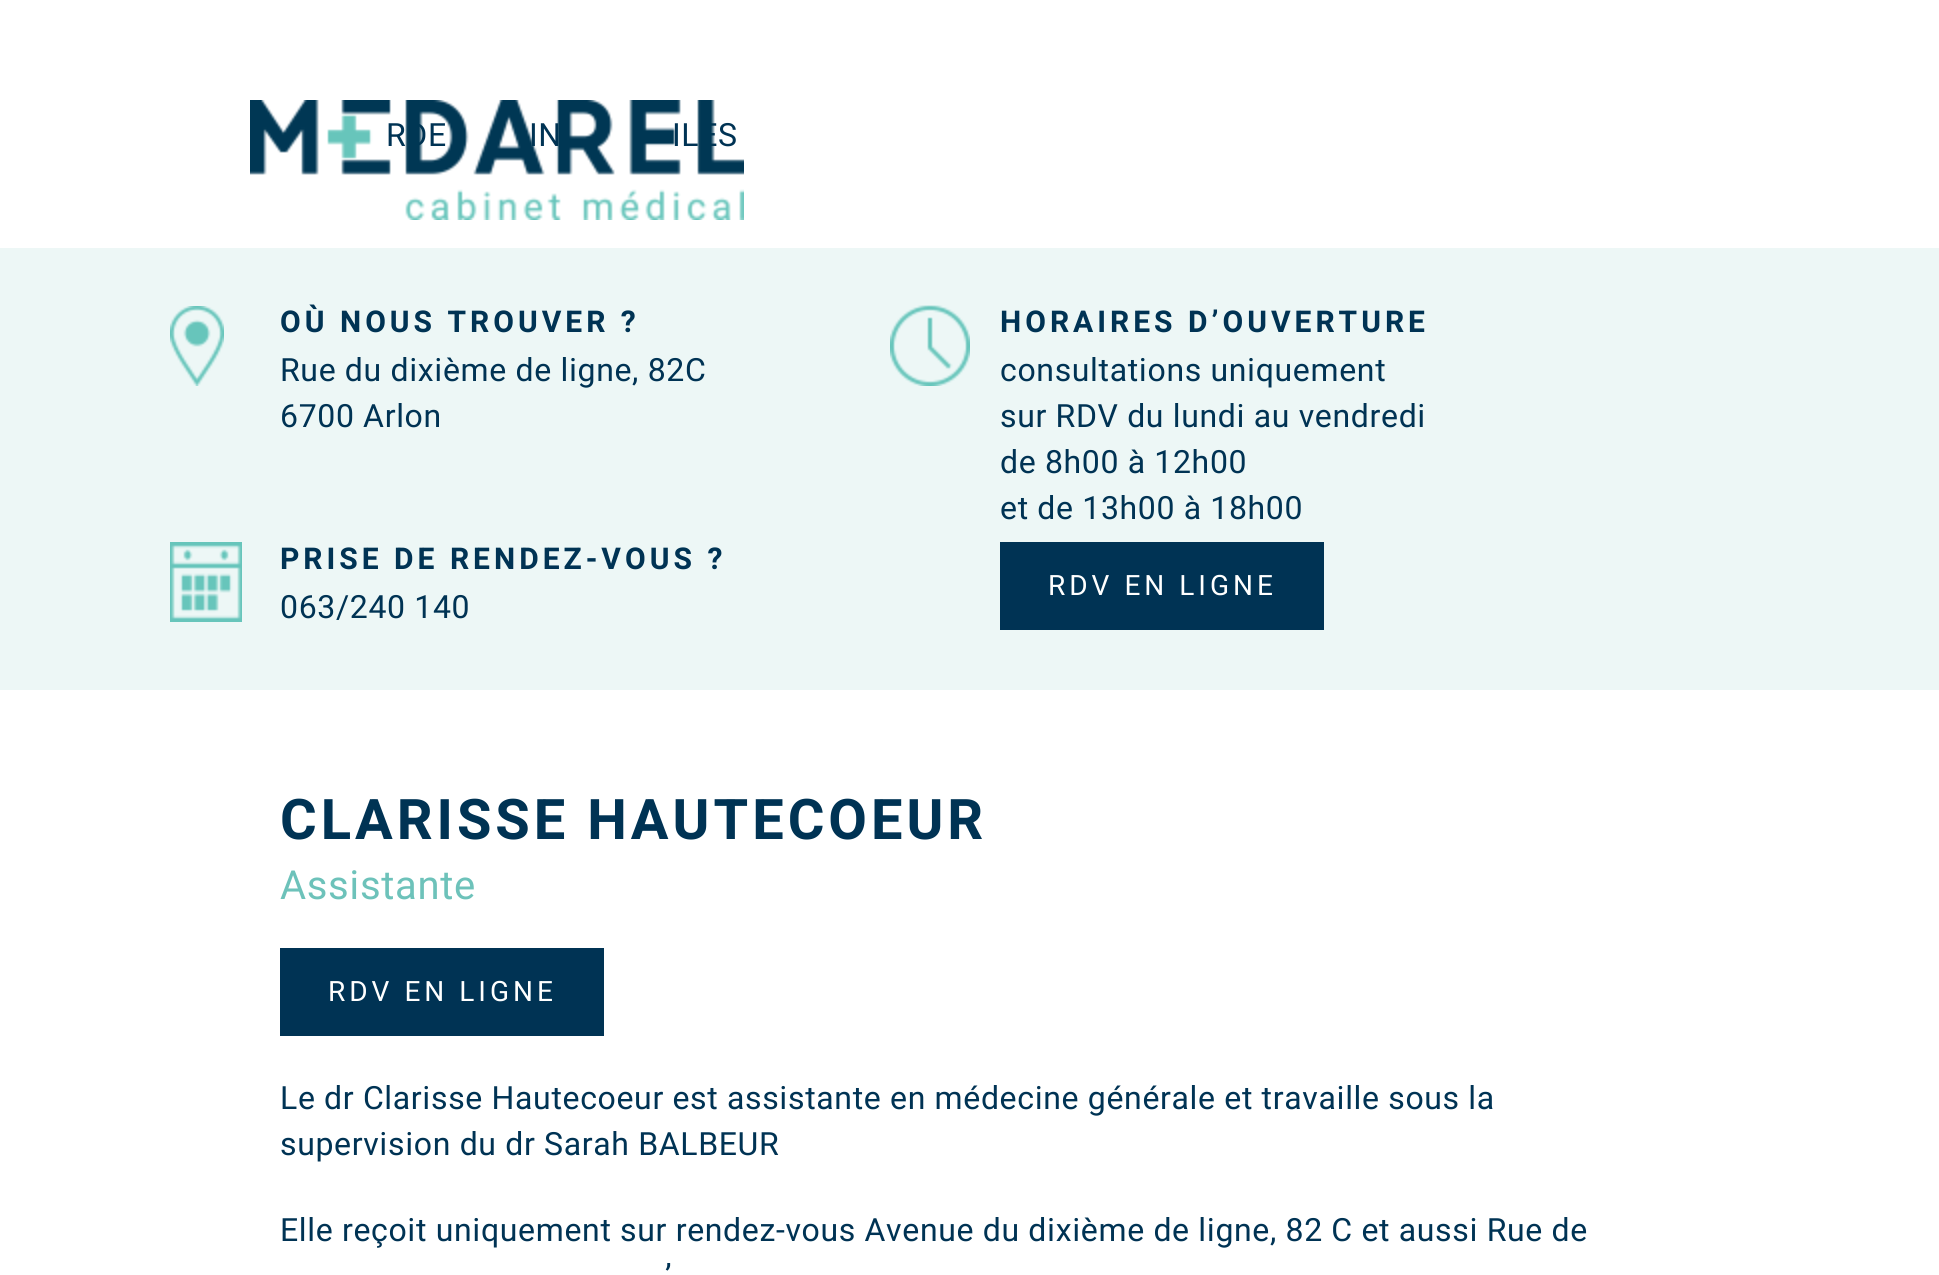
import math
import cairocffi as cairo

surface = cairo.ImageSurface(cairo.FORMAT_RGB24, 1939, 1275)
cr = cairo.Context(surface)
options = cairo.FontOptions()
options.set_hint_metrics(cairo.HINT_METRICS_OFF)
options.set_hint_style(cairo.HINT_STYLE_NONE)
cr.set_font_options(options)
cr.set_miter_limit(4)


def use_color(code):
    cr.set_source_rgb(*(v / 255 for v in bytes.fromhex(code[-6:])))


def spaced_text(x, y, s, letter, word):
    cr.move_to(x, y)
    for ch in s:
        cr.show_text(ch)
        cr.rel_move_to(letter + word * (ch == ' '), 0)


def picture(path, x, y, w, h):
    cr.save()
    cr.set_source_surface(cairo.ImageSurface.create_from_png(path), x, y)
    cr.rectangle(x, y, w, h)
    cr.fill()
    cr.restore()


use_color("#ffffff")
cr.paint()
cr.select_font_face("Heebo")
cr.set_font_size(32)
use_color("#003354")
spaced_text(386, 146, "RDE", 0.65, 0)
spaced_text(529, 146, "IN", 0.65, 0)
spaced_text(672, 146, "ILES", 0.65, 0)
picture("img1.png", 250, 100, 494, 120)
use_color("#edf7f6")
cr.rectangle(0, 248, 1939, 442)
cr.fill()
picture("img2.png", 170, 306, 54, 80)
cr.select_font_face("Heebo", cairo.FONT_SLANT_NORMAL, cairo.FONT_WEIGHT_BOLD)
cr.set_font_size(30)
use_color("#003354")
spaced_text(280, 332, "OÙ NOUS TROUVER ?", 4, 0)
cr.select_font_face("Heebo")
cr.set_font_size(32)
spaced_text(280, 381, "Rue du dixième de ligne, 82C", 0.65, 0)
spaced_text(280, 427, "6700 Arlon", 0.65, 0)
picture("img3.png", 890, 305, 80, 81)
cr.select_font_face("Heebo", cairo.FONT_SLANT_NORMAL, cairo.FONT_WEIGHT_BOLD)
cr.set_font_size(30)
spaced_text(1000, 332, "HORAIRES D’OUVERTURE", 4, 0)
cr.select_font_face("Heebo")
cr.set_font_size(32)
spaced_text(1000, 381, "consultations uniquement", 0.65, 0)
spaced_text(1000, 427, "sur RDV du lundi au vendredi", 0.65, 0)
spaced_text(1000, 473, "de 8h00 à 12h00", 0.65, 0)
spaced_text(1000, 519, "et de 13h00 à 18h00", 0.65, 0)
picture("img4.png", 170, 542, 72, 80)
cr.select_font_face("Heebo", cairo.FONT_SLANT_NORMAL, cairo.FONT_WEIGHT_BOLD)
cr.set_font_size(30)
spaced_text(280, 569, "PRISE DE RENDEZ-VOUS ?", 4, 0)
cr.select_font_face("Heebo")
cr.set_font_size(32)
spaced_text(280, 618, "063/240 140", 0.65, 0)
cr.rectangle(1000, 542, 324, 88)
cr.fill()
cr.set_font_size(28)
use_color("#ffffff")
spaced_text(1048, 595, "RDV EN LIGNE", 4, 0)
cr.select_font_face("Heebo", cairo.FONT_SLANT_NORMAL, cairo.FONT_WEIGHT_BOLD)
cr.set_font_size(56)
use_color("#003354")
spaced_text(280, 839, "CLARISSE HAUTECOEUR", 4, 0)
cr.select_font_face("Heebo")
cr.set_font_size(40)
use_color("#6dc2ba")
spaced_text(280, 899, "Assistante", 0.65, 0)
use_color("#003354")
cr.rectangle(280, 948, 324, 88)
cr.fill()
cr.set_font_size(28)
use_color("#ffffff")
spaced_text(328, 1001, "RDV EN LIGNE", 4, 0)
cr.set_font_size(32)
use_color("#003354")
spaced_text(280, 1109, "Le dr Clarisse Hautecoeur est assistante en médecine générale et travaille sous la", 0.65, 0)
spaced_text(280, 1155, "supervision du dr Sarah BALBEUR", 0.65, 0)
spaced_text(280, 1241, "Elle reçoit uniquement sur rendez-vous Avenue du dixième de ligne, 82 C et aussi Rue de", 0.65, 0)
spaced_text(665, 1287, "’", 0.65, 0)
surface.write_to_png("result.png")
